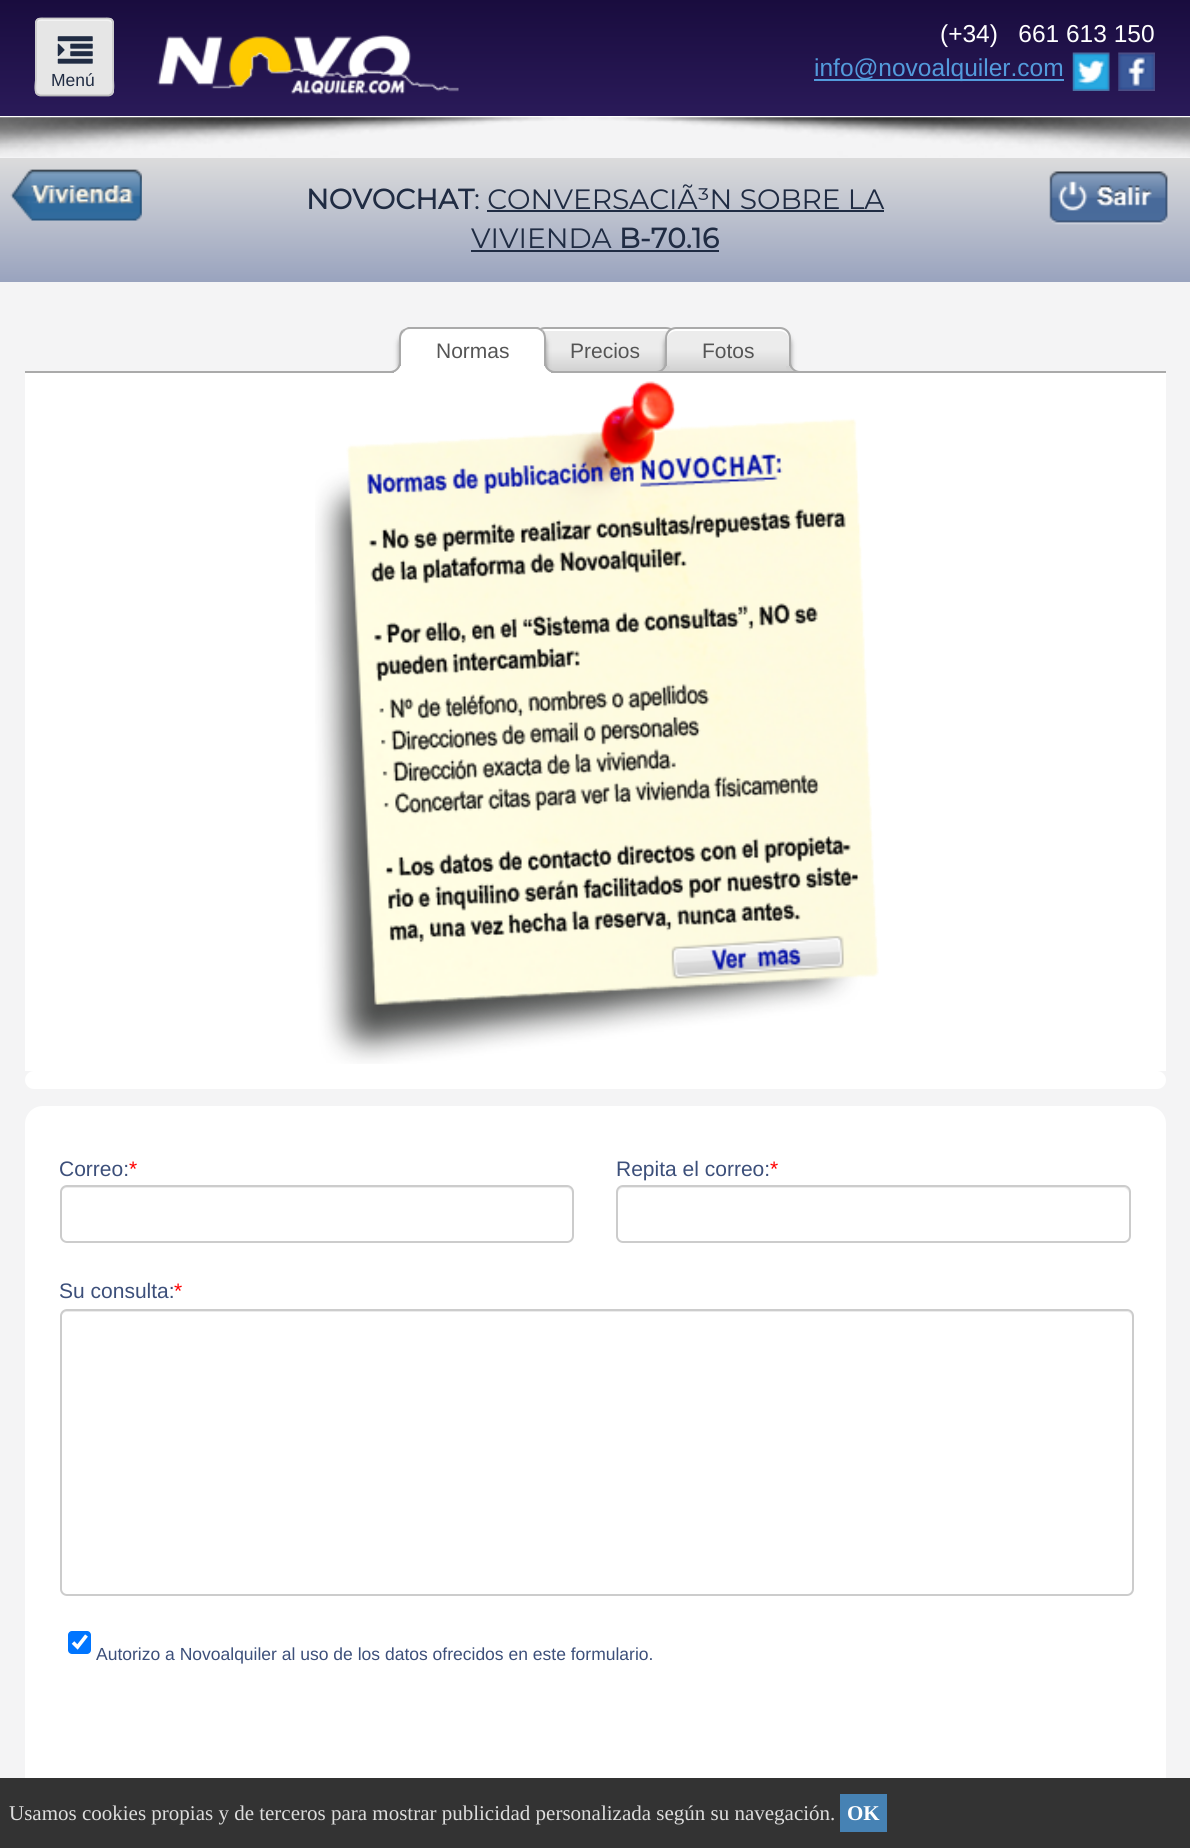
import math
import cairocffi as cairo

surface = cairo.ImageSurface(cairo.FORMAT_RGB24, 1190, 1848)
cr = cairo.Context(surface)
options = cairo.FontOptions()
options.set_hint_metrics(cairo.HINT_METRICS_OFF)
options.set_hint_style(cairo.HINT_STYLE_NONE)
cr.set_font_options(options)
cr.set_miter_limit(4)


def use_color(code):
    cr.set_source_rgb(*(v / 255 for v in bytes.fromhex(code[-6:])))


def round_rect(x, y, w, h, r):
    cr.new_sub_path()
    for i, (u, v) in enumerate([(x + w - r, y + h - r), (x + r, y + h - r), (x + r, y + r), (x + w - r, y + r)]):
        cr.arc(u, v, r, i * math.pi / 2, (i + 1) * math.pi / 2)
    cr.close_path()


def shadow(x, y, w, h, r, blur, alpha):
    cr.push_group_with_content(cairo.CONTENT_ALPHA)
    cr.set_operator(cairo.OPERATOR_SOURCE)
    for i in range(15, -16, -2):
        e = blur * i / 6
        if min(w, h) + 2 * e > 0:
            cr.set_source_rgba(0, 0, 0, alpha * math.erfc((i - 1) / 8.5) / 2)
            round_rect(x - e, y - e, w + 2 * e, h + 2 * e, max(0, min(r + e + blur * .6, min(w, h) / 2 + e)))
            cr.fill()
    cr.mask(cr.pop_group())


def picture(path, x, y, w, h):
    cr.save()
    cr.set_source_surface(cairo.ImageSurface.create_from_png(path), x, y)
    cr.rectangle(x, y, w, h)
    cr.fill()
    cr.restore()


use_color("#ffffff")
cr.paint()
gradient = cairo.LinearGradient(595, 0, 595, 116)
gradient.add_color_stop_rgba(0, 0.098, 0.047, 0.243, 1)
gradient.add_color_stop_rgba(1, 0.165, 0.102, 0.349, 1)
cr.set_source(gradient)
cr.rectangle(0, 0, 1190, 116)
cr.fill()
use_color("#e6e6e6")
round_rect(35, 18, 79, 78, 5)
cr.fill()
use_color("#f3f3f3")
cr.new_path()
cr.move_to(40, 21)
cr.line_to(108, 21)
cr.curve_to(110, 21, 112, 23, 112, 24)
cr.curve_to(112, 16, 102, 19, 97, 19)
cr.line_to(52, 19)
cr.curve_to(47, 19, 37, 16, 37, 24)
cr.curve_to(37, 23, 38, 21, 40, 21)
cr.close_path()
cr.fill()
cr.new_path()
cr.move_to(111.5, 94)
cr.line_to(109, 95.5)
cr.line_to(40, 95.5)
cr.line_to(37, 94)
use_color("#bbbbbb")
cr.set_line_width(1.8)
cr.stroke()
cr.new_path()
cr.move_to(37, 94)
cr.curve_to(34, 91, 36, 80.5, 36, 79.5)
cr.line_to(36, 34)
cr.curve_to(36, 16.5, 34, 18.5, 51.5, 18.5)
cr.line_to(97, 18.5)
cr.curve_to(115, 18.5, 113, 16.5, 113, 34)
cr.line_to(113, 79.5)
cr.curve_to(113, 80.5, 114.5, 91, 111.5, 94)
use_color("#cccccc")
cr.stroke()
picture("img1.png", 57, 36, 36, 28)
cr.select_font_face("Liberation Sans")
cr.set_font_size(17.5)
use_color("#202c43")
cr.move_to(51, 86)
cr.show_text("Menú")
picture("img2.png", 157, 35, 302, 60)
cr.set_font_size(24.5)
use_color("#ffffff")
cr.move_to(940, 42)
cr.show_text("(+34)   661 613 150")
use_color("#539bdc")
cr.rectangle(814, 79, 250, 2)
cr.fill()
cr.move_to(814, 76)
cr.show_text("info@novoalquiler.com")
picture("img3.png", 1072, 52, 38, 39)
picture("img4.png", 1118, 52, 37, 39)
use_color("#f4f4f5")
cr.rectangle(0, 117, 1190, 1661)
cr.fill()
picture("img5.png", 0, 117, 1190, 40)
gradient = cairo.LinearGradient(595, 157, 595, 282)
gradient.add_color_stop_rgba(0, 0.863, 0.863, 0.863, 1)
gradient.add_color_stop_rgba(1, 0.6, 0.639, 0.745, 1)
cr.set_source(gradient)
cr.rectangle(0, 158, 1190, 124)
cr.fill()
picture("img6.png", 10, 169, 132, 52)
cr.select_font_face("Montserrat", cairo.FONT_SLANT_NORMAL, cairo.FONT_WEIGHT_BOLD)
cr.set_font_size(28)
use_color("#202c43")
cr.move_to(306, 209)
cr.show_text("NOVOCHAT")
cr.select_font_face("Montserrat Thin")
cr.move_to(474, 209)
cr.show_text(": CONVERSACIÃ³N SOBRE LA")
cr.move_to(471, 248)
cr.show_text("VIVIENDA")
cr.rectangle(487, 210, 397, 2)
cr.fill()
cr.select_font_face("Montserrat", cairo.FONT_SLANT_NORMAL, cairo.FONT_WEIGHT_BOLD)
cr.move_to(619, 248)
cr.show_text("B-70.16")
cr.rectangle(471, 250, 248, 2)
cr.fill()
picture("img7.png", 1049, 171, 119, 54)
gradient = cairo.LinearGradient(606, 329, 606, 371)
gradient.add_color_stop_rgba(0.5, 0.925, 0.925, 0.925, 1)
gradient.add_color_stop_rgba(1, 0.82, 0.82, 0.82, 1)
cr.set_source(gradient)
cr.rectangle(541, 329, 129, 42)
cr.fill()
use_color("#ffffff")
cr.new_path()
cr.move_to(544, 331)
cr.line_to(667, 331)
cr.curve_to(672, 331, 676, 335, 676, 340)
cr.curve_to(676, 324, 658, 329, 647, 329)
cr.line_to(565, 329)
cr.curve_to(554, 329, 536, 324, 536, 340)
cr.curve_to(536, 335, 539, 331, 544, 331)
cr.close_path()
cr.fill()
cr.new_path()
cr.move_to(545, 328)
cr.line_to(666, 328)
cr.curve_to(671.5, 328, 676, 332.5, 676, 338)
cr.line_to(676, 372)
cr.line_to(535, 372)
cr.line_to(535, 338)
cr.curve_to(535, 332.5, 539.5, 328, 545, 328)
cr.close_path()
use_color("#aaaaaa")
cr.set_line_width(2)
cr.stroke()
use_color("#000000")
shadow(665, 333, 126, 45, 11, 2.5, 0.4)
cr.save()
cr.new_path()
cr.move_to(676, 327)
cr.line_to(780, 327)
cr.curve_to(786, 327, 791, 332, 791, 338)
cr.line_to(791, 373)
cr.line_to(665, 373)
cr.line_to(665, 338)
cr.curve_to(665, 332, 670, 327, 676, 327)
cr.close_path()
cr.clip()
gradient = cairo.LinearGradient(728, 329, 728, 371)
gradient.add_color_stop_rgba(0.5, 0.925, 0.925, 0.925, 1)
gradient.add_color_stop_rgba(1, 0.82, 0.82, 0.82, 1)
cr.set_source(gradient)
cr.rectangle(665, 329, 126, 42)
cr.fill()
cr.restore()
use_color("#ffffff")
cr.new_path()
cr.move_to(676, 331)
cr.line_to(780, 331)
cr.curve_to(785, 331, 789, 335, 789, 340)
cr.curve_to(789, 325, 774, 329, 763, 329)
cr.line_to(693, 329)
cr.curve_to(682, 329, 667, 325, 667, 340)
cr.curve_to(667, 335, 671, 331, 676, 331)
cr.close_path()
cr.fill()
cr.new_path()
cr.move_to(676, 328)
cr.line_to(780, 328)
cr.curve_to(785.5, 328, 790, 332.5, 790, 338)
cr.line_to(790, 372)
cr.line_to(666, 372)
cr.line_to(666, 338)
cr.curve_to(666, 332.5, 670.5, 328, 676, 328)
cr.close_path()
use_color("#aaaaaa")
cr.stroke()
use_color("#d1d1d1")
cr.new_path()
cr.move_to(660, 372)
cr.line_to(660, 376)
cr.curve_to(665.5, 376, 670, 371.5, 670, 366)
cr.line_to(666, 366)
cr.curve_to(665, 369, 663, 371, 660, 372)
cr.close_path()
cr.fill()
use_color("#aaaaaa")
cr.set_fill_rule(cairo.FILL_RULE_EVEN_ODD)
cr.new_path()
cr.move_to(656, 362)
cr.line_to(667, 362)
cr.curve_to(667, 368, 662, 373, 656, 373)
cr.close_path()
cr.move_to(656, 362)
cr.line_to(665, 362)
cr.curve_to(665, 367, 661, 371, 656, 371)
cr.close_path()
cr.fill()
use_color("#d1d1d1")
cr.set_fill_rule(cairo.FILL_RULE_WINDING)
cr.new_path()
cr.move_to(786, 366)
cr.curve_to(786, 371.5, 790.5, 376, 796, 376)
cr.line_to(796, 372)
cr.curve_to(793, 371, 791, 369, 790, 366)
cr.close_path()
cr.fill()
use_color("#aaaaaa")
cr.set_fill_rule(cairo.FILL_RULE_EVEN_ODD)
cr.new_path()
cr.move_to(789, 362)
cr.line_to(800, 362)
cr.line_to(800, 373)
cr.curve_to(794, 373, 789, 368, 789, 362)
cr.close_path()
cr.move_to(791, 362)
cr.line_to(800, 362)
cr.line_to(800, 371)
cr.curve_to(795, 371, 791, 367, 791, 362)
cr.close_path()
cr.fill()
cr.rectangle(25, 371, 1141, 2)
cr.fill()
use_color("#ffffff")
cr.rectangle(25, 373, 1141, 698)
cr.fill()
picture("img8.png", 315, 381, 564, 683)
cr.save()
cr.set_fill_rule(cairo.FILL_RULE_WINDING)
cr.rectangle(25, 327, 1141, 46)
cr.clip()
use_color("#000000")
shadow(399, 333, 147, 45, 11, 2.5, 0.4)
cr.restore()
cr.new_path()
cr.move_to(410, 327)
cr.line_to(535, 327)
cr.curve_to(541, 327, 546, 332, 546, 338)
cr.line_to(546, 373)
cr.line_to(399, 373)
cr.line_to(399, 338)
cr.curve_to(399, 332, 404, 327, 410, 327)
cr.close_path()
cr.fill()
use_color("#aaaaaa")
cr.set_fill_rule(cairo.FILL_RULE_WINDING)
cr.new_path()
cr.move_to(410, 329)
cr.curve_to(407, 329, 405, 330, 404, 332)
cr.line_to(402, 330)
cr.curve_to(404, 329, 406, 328, 408, 327)
cr.line_to(538, 327)
cr.curve_to(540, 328, 542, 329, 543, 330)
cr.line_to(542, 332)
cr.curve_to(540, 330, 538, 329, 536, 329)
cr.close_path()
cr.fill()
cr.new_path()
cr.move_to(546, 373)
cr.line_to(546, 338)
cr.curve_to(546, 335, 545, 332, 543, 330)
cr.line_to(542, 332)
cr.curve_to(543, 333, 544, 336, 544, 338)
cr.line_to(544, 371)
cr.close_path()
cr.fill()
use_color("#ffffff")
cr.new_path()
cr.move_to(546, 373)
cr.line_to(399, 373)
cr.line_to(401, 371)
cr.line_to(544, 371)
cr.close_path()
cr.fill()
use_color("#aaaaaa")
cr.new_path()
cr.move_to(399, 373)
cr.line_to(401, 371)
cr.line_to(401, 338)
cr.curve_to(401, 336, 402, 333, 404, 332)
cr.line_to(402, 330)
cr.curve_to(400, 332, 399, 335, 399, 338)
cr.close_path()
cr.fill()
cr.select_font_face("Liberation Sans")
cr.set_font_size(21)
use_color("#555555")
cr.move_to(436, 358)
cr.show_text("Normas")
cr.save()
cr.rectangle(25, 327, 1141, 46)
cr.clip()
use_color("#ffffff")
cr.new_path()
cr.move_to(394, 372)
cr.line_to(394, 376)
cr.curve_to(399.5, 376, 404, 371.5, 404, 366)
cr.line_to(400, 366)
cr.curve_to(399, 369, 397, 371, 394, 372)
cr.close_path()
cr.fill()
cr.restore()
use_color("#aaaaaa")
cr.set_fill_rule(cairo.FILL_RULE_EVEN_ODD)
cr.new_path()
cr.move_to(390, 362)
cr.line_to(401, 362)
cr.curve_to(401, 368, 396, 373, 390, 373)
cr.close_path()
cr.move_to(390, 362)
cr.line_to(399, 362)
cr.curve_to(399, 367, 395, 371, 390, 371)
cr.close_path()
cr.fill()
cr.save()
cr.set_fill_rule(cairo.FILL_RULE_WINDING)
cr.rectangle(25, 327, 1141, 46)
cr.clip()
use_color("#ffffff")
cr.new_path()
cr.move_to(541, 366)
cr.curve_to(541, 371.5, 545.5, 376, 551, 376)
cr.line_to(551, 372)
cr.curve_to(548, 371, 546, 369, 545, 366)
cr.close_path()
cr.fill()
cr.restore()
cr.new_path()
cr.move_to(544, 362)
cr.line_to(555, 362)
cr.line_to(555, 373)
cr.curve_to(549, 373, 544, 368, 544, 362)
cr.close_path()
cr.move_to(546, 362)
cr.line_to(555, 362)
cr.line_to(555, 371)
cr.curve_to(550, 371, 546, 367, 546, 362)
cr.close_path()
cr.fill()
use_color("#555555")
cr.move_to(570, 358)
cr.show_text("Precios")
cr.move_to(702, 358)
cr.show_text("Fotos")
use_color("#ffffff")
round_rect(25, 1071, 1141, 18, 9)
cr.fill()
cr.new_path()
cr.move_to(43, 1106)
cr.line_to(1148, 1106)
cr.curve_to(1158, 1106, 1166, 1114, 1166, 1124)
cr.line_to(1166, 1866)
cr.line_to(25, 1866)
cr.line_to(25, 1124)
cr.curve_to(25, 1114, 33, 1106, 43, 1106)
cr.close_path()
cr.fill()
use_color("#3c4f7a")
cr.move_to(59, 1176)
cr.show_text("Correo:")
use_color("#ff0000")
cr.move_to(129, 1176)
cr.show_text("*")
use_color("#ececec")
cr.set_fill_rule(cairo.FILL_RULE_WINDING)
cr.new_path()
cr.move_to(66, 1188)
cr.line_to(567, 1188)
cr.curve_to(570, 1188, 572, 1191, 572, 1194)
cr.line_to(572, 1192)
cr.curve_to(572, 1189, 570, 1187, 567, 1187)
cr.line_to(66, 1187)
cr.curve_to(63, 1187, 61, 1189, 61, 1192)
cr.line_to(61, 1194)
cr.curve_to(61, 1191, 64, 1188, 66, 1188)
cr.close_path()
cr.fill()
round_rect(61, 1186, 512, 56, 6)
use_color("#cccccc")
cr.stroke()
use_color("#3c4f7a")
cr.move_to(616, 1176)
cr.show_text("Repita el correo:")
use_color("#ff0000")
cr.move_to(770, 1176)
cr.show_text("*")
use_color("#ececec")
cr.new_path()
cr.move_to(623, 1188)
cr.line_to(1124, 1188)
cr.curve_to(1126, 1188, 1129, 1191, 1129, 1194)
cr.line_to(1129, 1192)
cr.curve_to(1129, 1189, 1127, 1187, 1124, 1187)
cr.line_to(623, 1187)
cr.curve_to(620, 1187, 618, 1189, 618, 1192)
cr.line_to(618, 1194)
cr.curve_to(618, 1191, 620, 1188, 623, 1188)
cr.close_path()
cr.fill()
round_rect(617, 1186, 513, 56, 6)
use_color("#cccccc")
cr.stroke()
use_color("#3c4f7a")
cr.move_to(59, 1298)
cr.show_text("Su consulta:")
use_color("#ff0000")
cr.move_to(174, 1298)
cr.show_text("*")
use_color("#ececec")
cr.new_path()
cr.move_to(66, 1312)
cr.line_to(1127, 1312)
cr.curve_to(1130, 1312, 1132, 1315, 1132, 1318)
cr.line_to(1132, 1316)
cr.curve_to(1132, 1313, 1130, 1311, 1127, 1311)
cr.line_to(66, 1311)
cr.curve_to(63, 1311, 61, 1313, 61, 1316)
cr.line_to(61, 1318)
cr.curve_to(61, 1315, 64, 1312, 66, 1312)
cr.close_path()
cr.fill()
round_rect(61, 1310, 1072, 285, 6)
use_color("#cccccc")
cr.stroke()
use_color("#0075ff")
round_rect(68, 1631, 23, 23, 4)
cr.fill()
cr.new_path()
cr.move_to(73, 1642.5)
cr.line_to(77.5, 1647)
cr.line_to(86.5, 1635.5)
use_color("#ffffff")
cr.set_line_width(3.6)
cr.stroke()
cr.set_font_size(17.5)
use_color("#3c4f7a")
cr.move_to(96, 1660)
cr.show_text("Autorizo a Novoalquiler al uso de los datos ofrecidos en este formulario.")
use_color("#333333")
cr.rectangle(0, 1778, 1190, 70)
cr.fill()
cr.select_font_face("Liberation Serif")
cr.set_font_size(21)
use_color("#dddddd")
cr.move_to(9, 1820)
cr.show_text("Usamos cookies propias y de terceros para mostrar publicidad personalizada según su navegación.")
use_color("#4682b4")
cr.rectangle(840, 1794, 47, 38)
cr.fill()
cr.select_font_face("Liberation Serif", cairo.FONT_SLANT_NORMAL, cairo.FONT_WEIGHT_BOLD)
use_color("#ffffff")
cr.move_to(847, 1820)
cr.show_text("OK")
surface.write_to_png("result.png")
